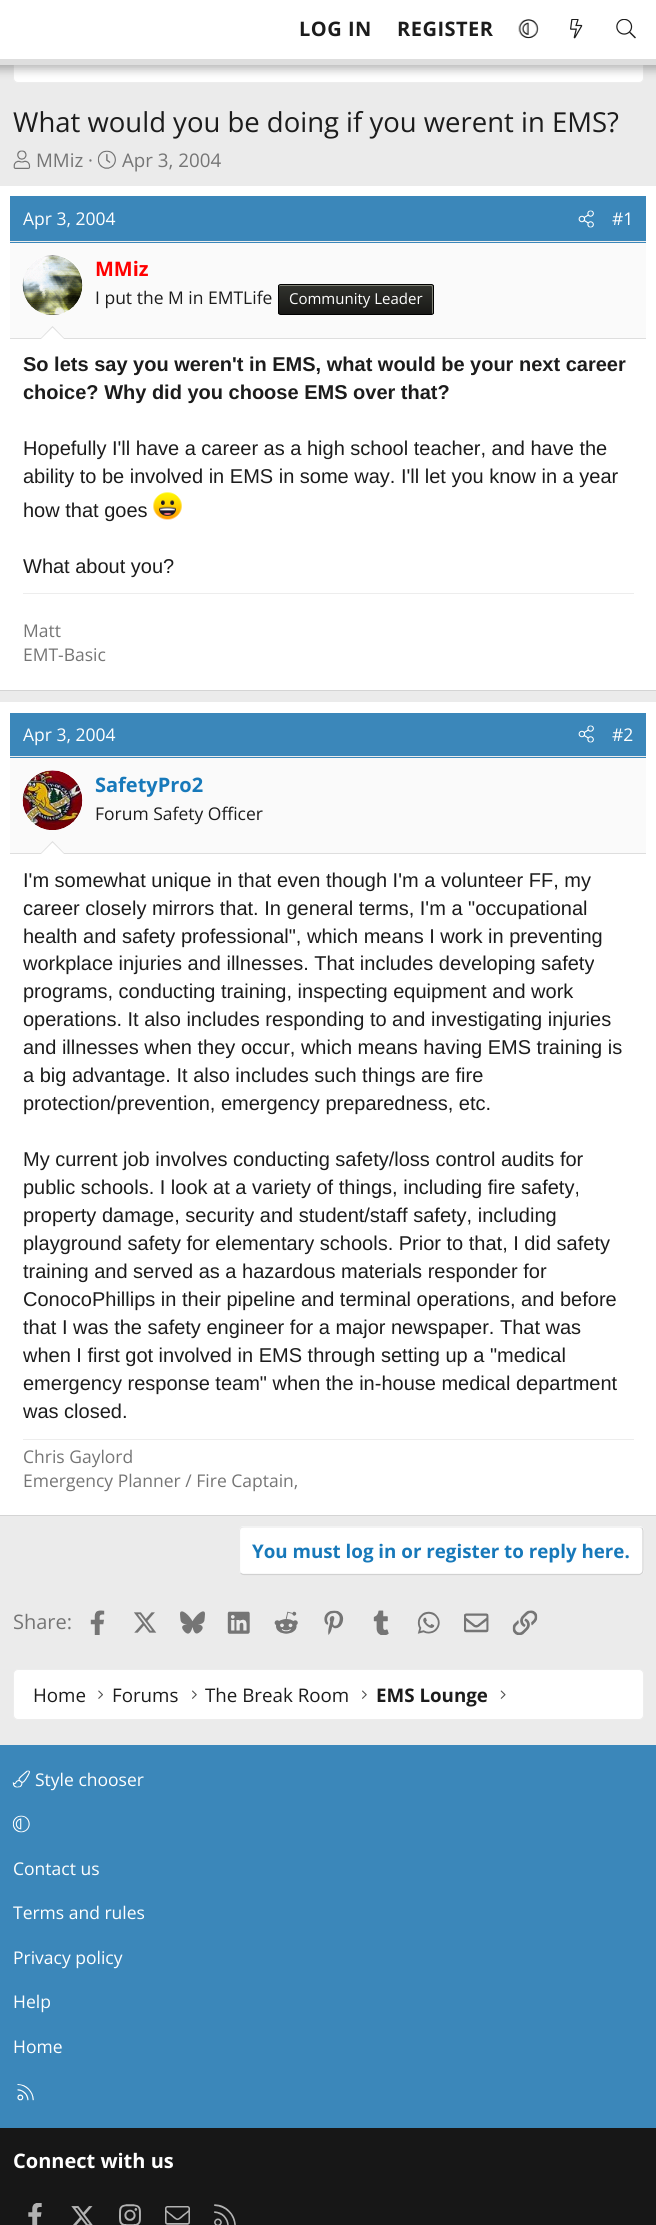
import math
import cairocffi as cairo

surface = cairo.ImageSurface(cairo.FORMAT_RGB24, 656, 2225)
cr = cairo.Context(surface)
options = cairo.FontOptions()
options.set_hint_metrics(cairo.HINT_METRICS_OFF)
options.set_hint_style(cairo.HINT_STYLE_NONE)
cr.set_font_options(options)
cr.set_miter_limit(4)


def use_color(code):
    cr.set_source_rgb(*(v / 255 for v in bytes.fromhex(code[-6:])))


def spaced_text(x, y, s, letter, word):
    cr.move_to(x, y)
    for ch in s:
        cr.show_text(ch)
        cr.rel_move_to(letter + word * (ch == ' '), 0)


def round_rect(x, y, w, h, r):
    cr.new_sub_path()
    for i, (u, v) in enumerate([(x + w - r, y + h - r), (x + r, y + h - r), (x + r, y + r), (x + w - r, y + r)]):
        cr.arc(u, v, r, i * math.pi / 2, (i + 1) * math.pi / 2)
    cr.close_path()


def shadow(x, y, w, h, r, blur, alpha):
    cr.push_group_with_content(cairo.CONTENT_ALPHA)
    cr.set_operator(cairo.OPERATOR_SOURCE)
    for i in range(15, -16, -2):
        e = blur * i / 6
        if min(w, h) + 2 * e > 0:
            cr.set_source_rgba(0, 0, 0, alpha * math.erfc((i - 1) / 8.5) / 2)
            round_rect(x - e, y - e, w + 2 * e, h + 2 * e, max(0, min(r + e + blur * .6, min(w, h) / 2 + e)))
            cr.fill()
    cr.mask(cr.pop_group())


def picture(path, x, y, w, h):
    cr.save()
    cr.set_source_surface(cairo.ImageSurface.create_from_png(path), x, y)
    cr.rectangle(x, y, w, h)
    cr.fill()
    cr.restore()


use_color("#ebebeb")
cr.paint()
use_color("#ffffff")
round_rect(13.5, 33.5, 630, 49, 4.5)
cr.fill_preserve()
use_color("#ededed")
cr.set_line_width(1)
cr.stroke()
use_color("#000000")
shadow(-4, -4, 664, 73, 0, 5, 0.3)
use_color("#ffffff")
cr.rectangle(0, 0, 656, 59)
cr.fill()
use_color("#dedede")
cr.rectangle(0, 59, 656, 6)
cr.fill()
cr.select_font_face("Open Sans", cairo.FONT_SLANT_NORMAL, cairo.FONT_WEIGHT_BOLD)
cr.set_font_size(20)
use_color("#1c1c1c")
spaced_text(299, 36, "LOG IN", 0.5, 0)
spaced_text(397, 36, "REGISTER", 0.5, 0)
picture("img1.png", 518, 19, 21, 20)
picture("img2.png", 570, 19, 13, 20)
picture("img3.png", 616, 19, 20, 20)
cr.select_font_face("Open Sans")
cr.set_font_size(27.5)
cr.move_to(13, 132)
cr.show_text("What would you be doing if you werent in EMS?")
picture("img4.png", 13, 150, 18, 19)
cr.set_font_size(18.75)
use_color("#757575")
cr.move_to(36, 167)
cr.show_text("MMiz ·")
picture("img5.png", 97, 150, 19, 19)
cr.move_to(122, 167)
cr.show_text("Apr 3, 2004")
use_color("#ffffff")
cr.rectangle(0, 186, 656, 504)
cr.fill()
use_color("#d4d4d4")
cr.rectangle(0, 690, 656, 1)
cr.fill()
use_color("#3b87ba")
cr.rectangle(10, 196, 636, 47)
cr.fill()
use_color("#ededed")
cr.rectangle(10, 241, 636, 1)
cr.fill()
cr.set_font_size(17.5)
use_color("#ffffff")
cr.move_to(23, 225)
cr.show_text("Apr 3, 2004")
picture("img6.png", 578, 210, 16, 18)
cr.move_to(612, 225)
cr.show_text("#1")
use_color("#fafafa")
cr.rectangle(10, 243, 636, 95)
cr.fill()
use_color("#dedede")
cr.rectangle(10, 338, 636, 1)
cr.fill()
use_color("#ffffff")
cr.arc(53, 285, 30, 0, 2 * math.pi)
cr.fill()
picture("img7.png", 22, 255, 61, 60)
cr.select_font_face("Open Sans", cairo.FONT_SLANT_NORMAL, cairo.FONT_WEIGHT_BOLD)
cr.set_font_size(20)
use_color("#ff0000")
cr.move_to(95, 276)
cr.show_text("MMiz")
cr.select_font_face("Open Sans")
cr.set_font_size(17.5)
use_color("#1c1c1c")
cr.move_to(95, 304)
cr.show_text("I put the M in EMTLife")
cr.save()
round_rect(278, 284, 156, 31, 2.5)
cr.clip()
gradient = cairo.LinearGradient(356, 285, 356, 314)
gradient.add_color_stop_rgba(0, 0.196, 0.2, 0.18, 1)
gradient.add_color_stop_rgba(1, 0.094, 0.094, 0.086, 1)
cr.set_source(gradient)
cr.rectangle(278, 285, 156, 29)
cr.fill()
cr.restore()
use_color("#818377")
cr.new_path()
cr.move_to(280, 286)
cr.line_to(431, 286)
cr.curve_to(432, 286, 432, 287, 432, 288)
cr.line_to(432, 314)
cr.curve_to(433, 314, 433, 314, 433, 313)
cr.line_to(433, 286)
cr.curve_to(433, 285, 433, 285, 432, 285)
cr.line_to(280, 285)
cr.curve_to(279, 285, 279, 285, 279, 286)
cr.line_to(279, 288)
cr.curve_to(279, 287, 279, 286, 280, 286)
cr.close_path()
cr.fill()
round_rect(278.5, 284.5, 155, 30, 2)
use_color("#000000")
cr.stroke()
cr.set_font_size(15)
use_color("#ffffff")
cr.move_to(289, 304)
cr.show_text("Community Leader")
use_color("#dedede")
cr.new_path()
cr.move_to(65, 339)
cr.line_to(40, 339)
cr.line_to(52.5, 326)
cr.close_path()
cr.fill()
use_color("#ffffff")
cr.new_path()
cr.move_to(64, 339)
cr.line_to(41, 339)
cr.line_to(52.5, 327.5)
cr.close_path()
cr.fill()
cr.select_font_face("Liberation Sans", cairo.FONT_SLANT_NORMAL, cairo.FONT_WEIGHT_BOLD)
cr.set_font_size(20)
use_color("#1c1c1c")
cr.move_to(23, 371)
cr.show_text("So lets say you weren't in EMS, what would be your next career")
cr.move_to(23, 399)
cr.show_text("choice? Why did you choose EMS over that?")
cr.select_font_face("Liberation Sans")
cr.move_to(23, 455)
cr.show_text("Hopefully I'll have a career as a high school teacher, and have the")
cr.move_to(23, 483)
cr.show_text("ability to be involved in EMS in some way. I'll let you know in a year")
cr.move_to(23, 517)
cr.show_text("how that goes")
picture("img8.png", 153, 492, 29, 28)
cr.move_to(23, 573)
cr.show_text("What about you?")
use_color("#ededed")
cr.rectangle(23, 593, 611, 1)
cr.fill()
cr.select_font_face("Open Sans")
cr.set_font_size(17.5)
use_color("#757575")
cr.move_to(23, 637)
cr.show_text("Matt")
cr.move_to(23, 661)
cr.show_text("EMT-Basic")
use_color("#ffffff")
cr.rectangle(0, 702, 656, 813)
cr.fill()
use_color("#d4d4d4")
cr.rectangle(0, 1515, 656, 1)
cr.fill()
use_color("#3b87ba")
cr.rectangle(10, 713, 636, 45)
cr.fill()
use_color("#ededed")
cr.rectangle(10, 756, 636, 1)
cr.fill()
use_color("#ffffff")
cr.move_to(23, 741)
cr.show_text("Apr 3, 2004")
picture("img6.png", 578, 725, 16, 18)
cr.move_to(612, 741)
cr.show_text("#2")
use_color("#fafafa")
cr.rectangle(10, 758, 636, 95)
cr.fill()
use_color("#dedede")
cr.rectangle(10, 853, 636, 1)
cr.fill()
use_color("#ffffff")
cr.arc(53, 800, 30, 0, 2 * math.pi)
cr.fill()
picture("img9.png", 22, 770, 61, 60)
cr.select_font_face("Open Sans", cairo.FONT_SLANT_NORMAL, cairo.FONT_WEIGHT_BOLD)
cr.set_font_size(20)
use_color("#1779ba")
cr.move_to(95, 792)
cr.show_text("SafetyPro2")
cr.select_font_face("Open Sans")
cr.set_font_size(17.5)
use_color("#1c1c1c")
cr.move_to(95, 820)
cr.show_text("Forum Safety Officer")
use_color("#dedede")
cr.new_path()
cr.move_to(65, 854)
cr.line_to(40, 854)
cr.line_to(52.5, 841)
cr.close_path()
cr.fill()
use_color("#ffffff")
cr.new_path()
cr.move_to(64, 854)
cr.line_to(41, 854)
cr.line_to(52.5, 842.5)
cr.close_path()
cr.fill()
cr.select_font_face("Liberation Sans")
cr.set_font_size(20)
use_color("#1c1c1c")
cr.move_to(23, 887)
cr.show_text("I'm somewhat unique in that even though I'm a volunteer FF, my")
cr.move_to(23, 915)
cr.show_text("career closely mirrors that. In general terms, I'm a \"occupational")
cr.move_to(23, 943)
cr.show_text("health and safety professional\", which means I work in preventing")
cr.move_to(23, 970)
cr.show_text("workplace injuries and illnesses. That includes developing safety")
cr.move_to(23, 998)
cr.show_text("programs, conducting training, inspecting equipment and work")
cr.move_to(23, 1026)
cr.show_text("operations. It also includes responding to and investigating injuries")
cr.move_to(23, 1054)
cr.show_text("and illnesses when they occur, which means having EMS training is")
cr.move_to(23, 1082)
cr.show_text("a big advantage. It also includes such things are fire")
cr.move_to(23, 1110)
cr.show_text("protection/prevention, emergency preparedness, etc.")
cr.move_to(23, 1166)
cr.show_text("My current job involves conducting safety/loss control audits for")
cr.move_to(23, 1194)
cr.show_text("public schools. I look at a variety of things, including fire safety,")
cr.move_to(23, 1222)
cr.show_text("property damage, security and student/staff safety, including")
cr.move_to(23, 1250)
cr.show_text("playground safety for elementary schools. Prior to that, I did safety")
cr.move_to(23, 1278)
cr.show_text("training and served as a hazardous materials responder for")
cr.move_to(23, 1306)
cr.show_text("ConocoPhillips in their pipeline and terminal operations, and before")
cr.move_to(23, 1334)
cr.show_text("that I was the safety engineer for a major newspaper. That was")
cr.move_to(23, 1362)
cr.show_text("when I first got involved in EMS through setting up a \"medical")
cr.move_to(23, 1390)
cr.show_text("emergency response team\" when the in-house medical department")
cr.move_to(23, 1418)
cr.show_text("was closed.")
use_color("#ededed")
cr.rectangle(23, 1439, 611, 1)
cr.fill()
cr.select_font_face("Open Sans")
cr.set_font_size(17.5)
use_color("#757575")
cr.move_to(23, 1463)
cr.show_text("Chris Gaylord")
cr.move_to(23, 1487)
cr.show_text("Emergency Planner / Fire Captain,")
use_color("#ffffff")
round_rect(239, 1526, 405, 49, 5)
cr.fill()
cr.new_path()
cr.move_to(642, 1528)
cr.curve_to(642.5, 1529, 643, 1530, 643, 1531)
cr.line_to(643, 1570)
cr.curve_to(643, 1571, 642.5, 1572.5, 642, 1573)
cr.curve_to(641, 1574, 640, 1574.5, 639, 1574.5)
cr.line_to(244, 1574.5)
cr.curve_to(242.5, 1574.5, 241.5, 1574, 240.5, 1573)
use_color("#d1d1d1")
cr.set_line_width(1.2)
cr.stroke()
cr.new_path()
cr.move_to(240.5, 1573)
cr.curve_to(240, 1572.5, 239.5, 1571, 239.5, 1570)
cr.line_to(239.5, 1531)
cr.curve_to(239.5, 1530, 240, 1529, 240.5, 1528)
cr.curve_to(241.5, 1527.5, 242.5, 1527, 244, 1527)
cr.line_to(639, 1527)
cr.curve_to(640, 1527, 641, 1527.5, 642, 1528)
use_color("#ebebeb")
cr.stroke()
cr.select_font_face("Open Sans", cairo.FONT_SLANT_NORMAL, cairo.FONT_WEIGHT_BOLD)
cr.set_font_size(18.75)
use_color("#1779ba")
cr.move_to(252, 1558)
cr.show_text("You must log in or register to reply here.")
cr.select_font_face("Open Sans")
cr.set_font_size(20)
use_color("#757575")
cr.move_to(13, 1629)
cr.show_text("Share:")
picture("img10.png", 90, 1610, 15, 25)
picture("img11.png", 134, 1612, 23, 21)
picture("img12.png", 180, 1611, 25, 23)
picture("img13.png", 227, 1611, 23, 23)
picture("img14.png", 274, 1611, 24, 23)
picture("img15.png", 324, 1610, 20, 25)
picture("img16.png", 373, 1610, 16, 25)
picture("img17.png", 417, 1611, 23, 23)
picture("img18.png", 464, 1613, 25, 20)
picture("img19.png", 512, 1610, 26, 25)
use_color("#ffffff")
round_rect(13.5, 1669.5, 630, 50, 4.5)
cr.fill_preserve()
use_color("#ededed")
cr.set_line_width(1)
cr.stroke()
cr.set_font_size(18.75)
use_color("#1c1c1c")
cr.move_to(33, 1702)
cr.show_text("Home")
picture("img20.png", 98, 1690, 5, 9)
cr.move_to(112, 1702)
cr.show_text("Forums")
picture("img21.png", 192, 1690, 5, 9)
cr.move_to(205, 1702)
cr.show_text("The Break Room")
picture("img21.png", 362, 1690, 5, 9)
cr.select_font_face("Open Sans", cairo.FONT_SLANT_NORMAL, cairo.FONT_WEIGHT_BOLD)
cr.move_to(376, 1702)
cr.show_text("EMS Lounge")
picture("img22.png", 500, 1690, 6, 9)
use_color("#3b87ba")
cr.rectangle(0, 1745, 656, 383)
cr.fill()
picture("img23.png", 12, 1770, 18, 18)
cr.select_font_face("Open Sans")
cr.set_font_size(17.5)
use_color("#ffffff")
cr.move_to(35, 1786)
cr.show_text("Style chooser")
picture("img24.png", 12, 1815, 18, 18)
cr.move_to(13, 1875)
cr.show_text("Contact us")
cr.move_to(13, 1919)
cr.show_text("Terms and rules")
cr.move_to(13, 1964)
cr.show_text("Privacy policy")
cr.move_to(13, 2008)
cr.show_text("Help")
cr.move_to(13, 2053)
cr.show_text("Home")
picture("img25.png", 17, 2084, 17, 17)
use_color("#171717")
cr.rectangle(0, 2128, 656, 97)
cr.fill()
cr.select_font_face("Open Sans", cairo.FONT_SLANT_NORMAL, cairo.FONT_WEIGHT_BOLD)
cr.set_font_size(20)
use_color("#ffffff")
cr.move_to(13, 2168)
cr.show_text("Connect with us")
picture("img26.png", 28, 2203, 14, 22)
picture("img27.png", 71, 2206, 22, 19)
picture("img28.png", 119, 2204, 22, 21)
picture("img29.png", 165, 2206, 25, 19)
picture("img30.png", 214, 2204, 22, 21)
surface.write_to_png("result.png")
